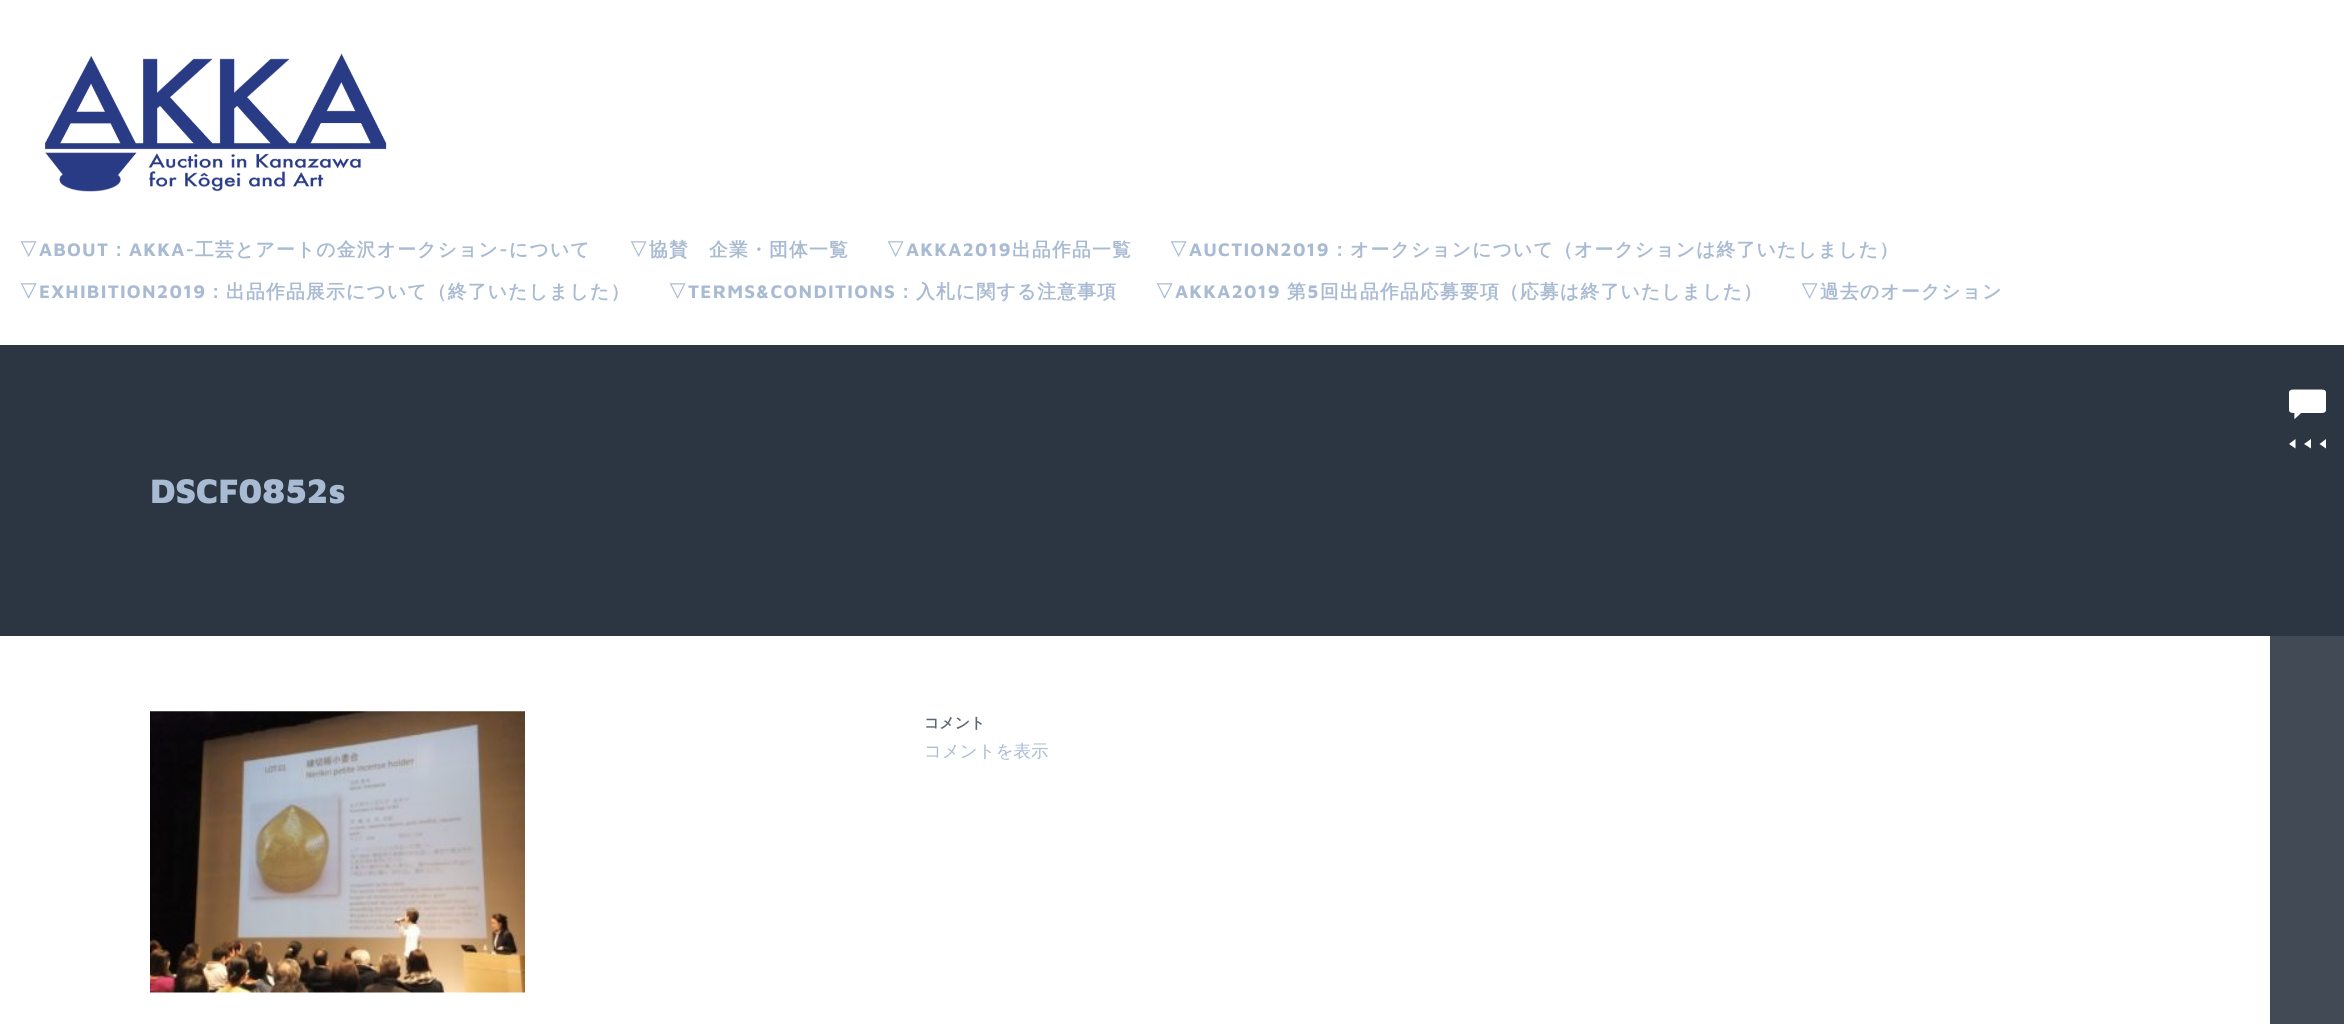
import math
import cairocffi as cairo

surface = cairo.ImageSurface(cairo.FORMAT_RGB24, 2344, 1024)
cr = cairo.Context(surface)
options = cairo.FontOptions()
options.set_hint_metrics(cairo.HINT_METRICS_OFF)
options.set_hint_style(cairo.HINT_STYLE_NONE)
cr.set_font_options(options)
cr.set_miter_limit(4)


def use_color(code):
    cr.set_source_rgb(*(v / 255 for v in bytes.fromhex(code[-6:])))


def spaced_text(x, y, s, letter, word):
    cr.move_to(x, y)
    for ch in s:
        cr.show_text(ch)
        cr.rel_move_to(letter + word * (ch == ' '), 0)


def picture(path, x, y, w, h):
    cr.save()
    cr.set_source_surface(cairo.ImageSurface.create_from_png(path), x, y)
    cr.rectangle(x, y, w, h)
    cr.fill()
    cr.restore()


use_color("#ffffff")
cr.paint()
use_color("#414a55")
cr.rectangle(2270, 636, 74, 388)
cr.fill()
picture("img1.png", 45, 53, 342, 139)
cr.select_font_face("WenQuanYi Zen Hei", cairo.FONT_SLANT_NORMAL, cairo.FONT_WEIGHT_BOLD)
cr.set_font_size(18.75)
use_color("#a9bbd2")
spaced_text(19, 256, "▽", 1.25, 0)
cr.select_font_face("Maven Pro", cairo.FONT_SLANT_NORMAL, cairo.FONT_WEIGHT_BOLD)
spaced_text(39, 256, "ABOUT", 1.25, 0)
cr.select_font_face("WenQuanYi Zen Hei", cairo.FONT_SLANT_NORMAL, cairo.FONT_WEIGHT_BOLD)
spaced_text(109, 256, "：", 1.25, 0)
cr.select_font_face("Maven Pro", cairo.FONT_SLANT_NORMAL, cairo.FONT_WEIGHT_BOLD)
spaced_text(129, 256, "AKKA-", 1.25, 0)
cr.select_font_face("WenQuanYi Zen Hei", cairo.FONT_SLANT_NORMAL, cairo.FONT_WEIGHT_BOLD)
spaced_text(195, 256, "工芸とアートの金沢オークション", 1.25, 0)
cr.select_font_face("Maven Pro", cairo.FONT_SLANT_NORMAL, cairo.FONT_WEIGHT_BOLD)
spaced_text(499, 256, "-", 1.25, 0)
cr.select_font_face("WenQuanYi Zen Hei", cairo.FONT_SLANT_NORMAL, cairo.FONT_WEIGHT_BOLD)
spaced_text(509, 256, "について", 1.25, 0)
spaced_text(629, 256, "▽協賛　企業・団体一覧", 1.25, 0)
spaced_text(886, 256, "▽", 1.25, 0)
cr.select_font_face("Maven Pro", cairo.FONT_SLANT_NORMAL, cairo.FONT_WEIGHT_BOLD)
spaced_text(906, 256, "AKKA2019", 1.25, 0)
cr.select_font_face("WenQuanYi Zen Hei", cairo.FONT_SLANT_NORMAL, cairo.FONT_WEIGHT_BOLD)
spaced_text(1012, 256, "出品作品一覧", 1.25, 0)
spaced_text(1169, 256, "▽", 1.25, 0)
cr.select_font_face("Maven Pro", cairo.FONT_SLANT_NORMAL, cairo.FONT_WEIGHT_BOLD)
spaced_text(1189, 256, "AUCTION2019", 1.25, 0)
cr.select_font_face("WenQuanYi Zen Hei", cairo.FONT_SLANT_NORMAL, cairo.FONT_WEIGHT_BOLD)
spaced_text(1330, 256, "：オークションについて（オークションは終了いたしました）", 1.25, 0)
spaced_text(19, 298, "▽", 1.25, 0)
cr.select_font_face("Maven Pro", cairo.FONT_SLANT_NORMAL, cairo.FONT_WEIGHT_BOLD)
spaced_text(39, 298, "EXHIBITION2019", 1.25, 0)
cr.select_font_face("WenQuanYi Zen Hei", cairo.FONT_SLANT_NORMAL, cairo.FONT_WEIGHT_BOLD)
spaced_text(206, 298, "：出品作品展示について（終了いたしました）", 1.25, 0)
spaced_text(668, 298, "▽", 1.25, 0)
cr.select_font_face("Maven Pro", cairo.FONT_SLANT_NORMAL, cairo.FONT_WEIGHT_BOLD)
spaced_text(688, 298, "TERMS&CONDITIONS", 1.25, 0)
cr.select_font_face("WenQuanYi Zen Hei", cairo.FONT_SLANT_NORMAL, cairo.FONT_WEIGHT_BOLD)
spaced_text(896, 298, "：入札に関する注意事項", 1.25, 0)
spaced_text(1155, 298, "▽", 1.25, 0)
cr.select_font_face("Maven Pro", cairo.FONT_SLANT_NORMAL, cairo.FONT_WEIGHT_BOLD)
spaced_text(1175, 298, "AKKA2019", 1.25, 0)
cr.select_font_face("WenQuanYi Zen Hei", cairo.FONT_SLANT_NORMAL, cairo.FONT_WEIGHT_BOLD)
spaced_text(1287, 298, "第", 1.25, 0)
cr.select_font_face("Maven Pro", cairo.FONT_SLANT_NORMAL, cairo.FONT_WEIGHT_BOLD)
spaced_text(1307, 298, "5", 1.25, 0)
cr.select_font_face("WenQuanYi Zen Hei", cairo.FONT_SLANT_NORMAL, cairo.FONT_WEIGHT_BOLD)
spaced_text(1320, 298, "回出品作品応募要項（応募は終了いたしました）", 1.25, 0)
spaced_text(1800, 298, "▽過去のオークション", 1.25, 0)
use_color("#2c3642")
cr.rectangle(0, 345, 2344, 291)
cr.fill()
picture("img2.png", 2289, 389, 37, 31)
use_color("#ffffff")
cr.new_path()
cr.move_to(2295.5, 439)
cr.line_to(2289, 444)
cr.line_to(2295.5, 448.5)
cr.close_path()
cr.move_to(2304, 444)
cr.line_to(2311, 448.5)
cr.line_to(2311, 439)
cr.close_path()
cr.move_to(2326, 439)
cr.line_to(2319.5, 444)
cr.line_to(2326, 448.5)
cr.close_path()
cr.fill()
cr.select_font_face("Maven Pro Black")
cr.set_font_size(35)
use_color("#a9bbd2")
cr.move_to(150, 503)
cr.show_text("DSCF0852s")
picture("img3.png", 150, 711, 375, 282)
cr.select_font_face("WenQuanYi Zen Hei", cairo.FONT_SLANT_NORMAL, cairo.FONT_WEIGHT_BOLD)
cr.set_font_size(15)
use_color("#5d6876")
cr.move_to(924, 728)
cr.show_text("コメント")
cr.select_font_face("WenQuanYi Zen Hei Medium")
cr.set_font_size(17.5)
use_color("#a9bbd2")
cr.move_to(924, 757)
cr.show_text("コメントを表示")
surface.write_to_png("result.png")
